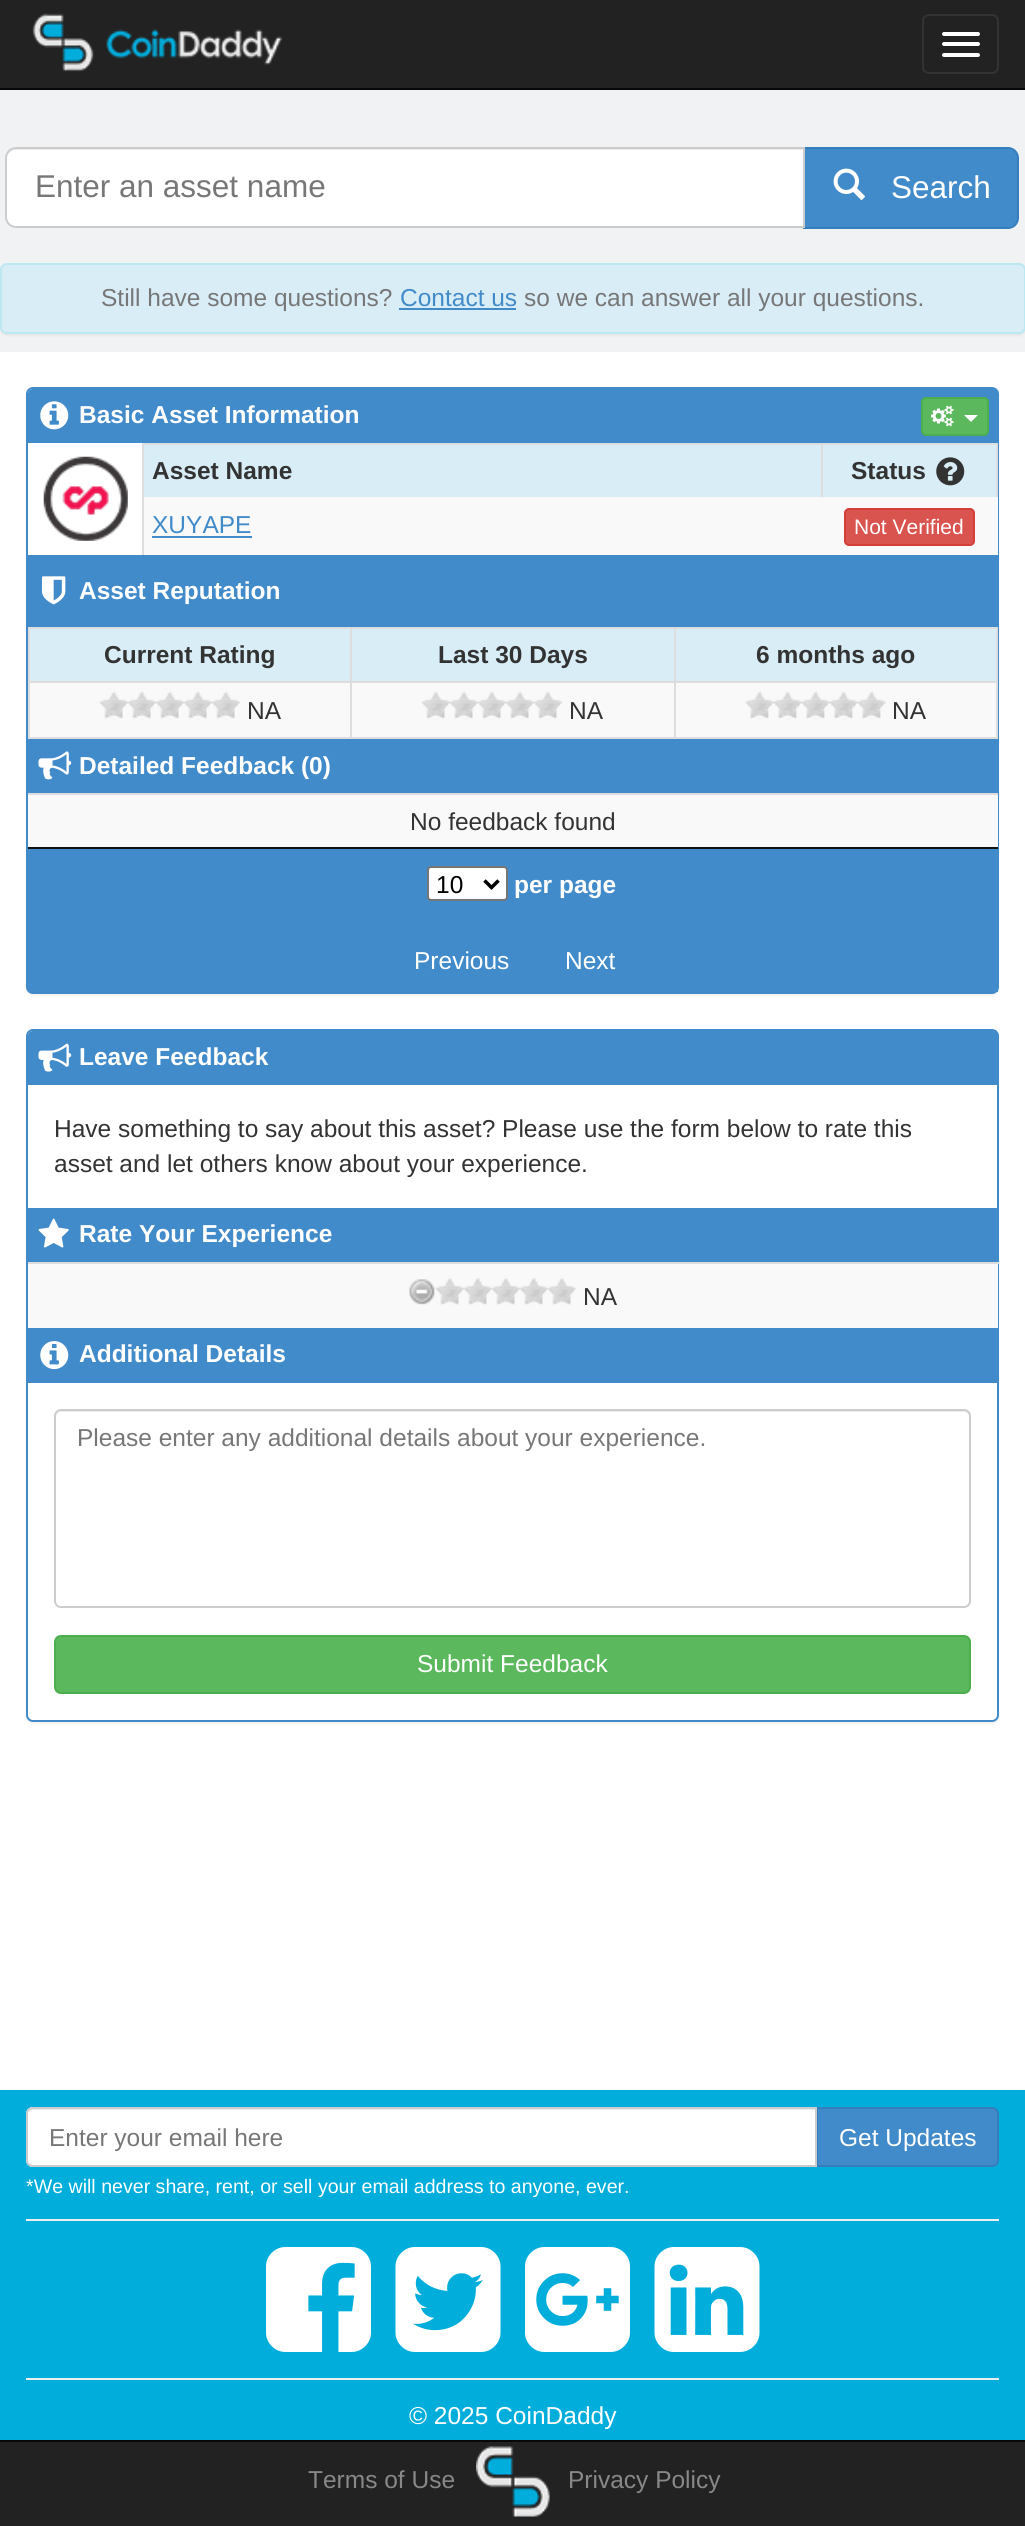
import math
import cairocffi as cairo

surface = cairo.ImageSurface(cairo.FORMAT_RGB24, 1025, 2526)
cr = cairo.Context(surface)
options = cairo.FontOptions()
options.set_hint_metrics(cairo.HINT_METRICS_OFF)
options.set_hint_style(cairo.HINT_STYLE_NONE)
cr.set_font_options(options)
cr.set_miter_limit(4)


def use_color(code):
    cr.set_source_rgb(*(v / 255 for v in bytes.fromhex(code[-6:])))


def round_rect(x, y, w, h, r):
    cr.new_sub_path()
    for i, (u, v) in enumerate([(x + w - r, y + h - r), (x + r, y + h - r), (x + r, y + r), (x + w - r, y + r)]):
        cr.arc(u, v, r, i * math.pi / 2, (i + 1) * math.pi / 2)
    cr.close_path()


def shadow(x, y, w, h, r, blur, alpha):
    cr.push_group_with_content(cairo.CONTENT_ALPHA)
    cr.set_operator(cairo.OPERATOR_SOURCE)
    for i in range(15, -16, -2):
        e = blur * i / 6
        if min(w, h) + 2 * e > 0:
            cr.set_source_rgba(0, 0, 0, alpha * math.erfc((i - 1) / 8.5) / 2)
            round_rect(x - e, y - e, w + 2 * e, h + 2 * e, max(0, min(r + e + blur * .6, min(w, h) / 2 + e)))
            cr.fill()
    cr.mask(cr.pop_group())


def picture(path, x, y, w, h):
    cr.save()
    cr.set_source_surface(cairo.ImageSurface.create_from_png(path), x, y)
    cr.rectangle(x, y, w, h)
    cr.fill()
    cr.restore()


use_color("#ffffff")
cr.paint()
use_color("#222222")
cr.rectangle(0, 0, 1025, 88)
cr.fill()
use_color("#080808")
cr.rectangle(0, 88, 1025, 2)
cr.fill()
picture("img1.png", 32, 13, 251, 59)
round_rect(923, 15, 75, 58, 6)
use_color("#333333")
cr.stroke()
use_color("#ffffff")
round_rect(942, 32, 38, 4, 2)
cr.fill()
round_rect(942, 42, 38, 4, 2)
cr.fill()
round_rect(942, 53, 38, 4, 2)
cr.fill()
use_color("#f0f2f4")
cr.rectangle(0, 90, 1025, 262)
cr.fill()
use_color("#428bca")
cr.new_path()
cr.move_to(804, 148)
cr.line_to(1008, 148)
cr.curve_to(1013.5, 148, 1018, 152.5, 1018, 158)
cr.line_to(1018, 218)
cr.curve_to(1018, 223.5, 1013.5, 228, 1008, 228)
cr.line_to(804, 228)
cr.close_path()
cr.fill_preserve()
use_color("#357ebd")
cr.stroke()
use_color("#ffffff")
cr.new_path()
cr.move_to(16, 147)
cr.line_to(805, 147)
cr.line_to(805, 228)
cr.line_to(16, 228)
cr.curve_to(10, 228, 5, 223, 5, 217)
cr.line_to(5, 158)
cr.curve_to(5, 152, 10, 147, 16, 147)
cr.close_path()
cr.fill()
use_color("#ececec")
cr.new_path()
cr.move_to(16, 150)
cr.line_to(803, 150)
cr.line_to(803, 149)
cr.line_to(16, 149)
cr.curve_to(11, 149, 7, 153, 7, 158)
cr.line_to(7, 159)
cr.curve_to(7, 154, 11, 150, 16, 150)
cr.close_path()
cr.fill()
cr.new_path()
cr.move_to(16, 148)
cr.line_to(804, 148)
cr.line_to(804, 227)
cr.line_to(16, 227)
cr.curve_to(10.5, 227, 6, 222.5, 6, 217)
cr.line_to(6, 158)
cr.curve_to(6, 152.5, 10.5, 148, 16, 148)
cr.close_path()
use_color("#cccccc")
cr.stroke()
cr.select_font_face("Liberation Sans")
cr.set_font_size(31.5)
use_color("#777777")
cr.move_to(35, 197)
cr.show_text("Enter an asset name")
picture("img2.png", 833, 168, 32, 32)
use_color("#ffffff")
cr.move_to(891, 198)
cr.show_text("Search")
use_color("#000000")
shadow(0, 264, 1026, 72, 7, 1, 0.05)
use_color("#d9edf7")
round_rect(1, 264, 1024, 69, 6)
cr.fill_preserve()
use_color("#bce8f1")
cr.stroke()
cr.set_font_size(24.5)
use_color("#777777")
cr.move_to(101, 306)
cr.show_text("Still have some questions?")
use_color("#428bca")
cr.move_to(400, 306)
cr.show_text("Contact us")
cr.rectangle(399, 308, 117, 2)
cr.fill()
use_color("#777777")
cr.move_to(524, 306)
cr.show_text("so we can answer all your questions.")
use_color("#000000")
shadow(26, 389, 973, 607, 7, 1, 0.05)
use_color("#ffffff")
round_rect(27, 388, 971, 605, 6)
cr.fill_preserve()
use_color("#428bca")
cr.stroke()
cr.new_path()
cr.move_to(33, 389)
cr.line_to(993, 389)
cr.curve_to(996, 389, 998, 391, 998, 394)
cr.line_to(998, 443)
cr.line_to(28, 443)
cr.line_to(28, 394)
cr.curve_to(28, 391, 30, 389, 33, 389)
cr.close_path()
cr.fill()
picture("img3.png", 40, 401, 29, 29)
cr.select_font_face("Liberation Sans", cairo.FONT_SLANT_NORMAL, cairo.FONT_WEIGHT_BOLD)
use_color("#ffffff")
cr.move_to(79, 423)
cr.show_text("Basic Asset Information")
use_color("#5cb85c")
round_rect(922, 398, 66, 37, 4)
cr.fill_preserve()
use_color("#4cae4c")
cr.stroke()
picture("img4.png", 931, 405, 23, 22)
use_color("#ffffff")
cr.new_path()
cr.move_to(964, 415)
cr.line_to(978, 415)
cr.line_to(971, 422)
cr.close_path()
cr.fill()
picture("img5.png", 43, 456, 85, 85)
use_color("#dddddd")
cr.rectangle(142, 443, 856, 2)
cr.fill()
cr.rectangle(996, 443, 2, 54)
cr.fill()
cr.rectangle(142, 443, 2, 114)
cr.fill()
use_color("#d9edf7")
cr.rectangle(144, 445, 677, 52)
cr.fill()
use_color("#333333")
cr.move_to(152, 479)
cr.show_text("Asset Name")
use_color("#d9edf7")
cr.rectangle(823, 445, 173, 52)
cr.fill()
use_color("#dddddd")
cr.rectangle(821, 443, 2, 56)
cr.fill()
use_color("#333333")
cr.move_to(851, 479)
cr.show_text("Status")
picture("img6.png", 936, 457, 29, 29)
use_color("#f9f9f9")
cr.rectangle(144, 497, 854, 58)
cr.fill()
cr.select_font_face("Liberation Sans")
use_color("#428bca")
cr.move_to(152, 533)
cr.show_text("XUYAPE")
cr.rectangle(152, 536, 100, 2)
cr.fill()
use_color("#d9534f")
round_rect(845, 509, 129, 36, 4)
cr.fill_preserve()
use_color("#d43f3a")
cr.stroke()
cr.set_font_size(21)
use_color("#ffffff")
cr.move_to(854, 534)
cr.show_text("Not Verified")
use_color("#428bca")
cr.rectangle(28, 555, 969, 72)
cr.fill()
picture("img7.png", 42, 576, 24, 29)
cr.select_font_face("Liberation Sans", cairo.FONT_SLANT_NORMAL, cairo.FONT_WEIGHT_BOLD)
cr.set_font_size(24.5)
use_color("#ffffff")
cr.move_to(79, 599)
cr.show_text("Asset Reputation")
use_color("#dddddd")
cr.rectangle(28, 627, 970, 2)
cr.fill()
cr.rectangle(996, 627, 2, 112)
cr.fill()
cr.rectangle(28, 737, 970, 2)
cr.fill()
cr.rectangle(28, 627, 2, 112)
cr.fill()
use_color("#d9edf7")
cr.rectangle(30, 629, 320, 52)
cr.fill()
use_color("#333333")
cr.move_to(104, 663)
cr.show_text("Current Rating")
use_color("#d9edf7")
cr.rectangle(352, 629, 322, 52)
cr.fill()
use_color("#dddddd")
cr.rectangle(674, 681, 324, 2)
cr.fill()
cr.rectangle(674, 681, 2, 58)
cr.fill()
cr.rectangle(350, 681, 326, 2)
cr.fill()
cr.rectangle(350, 681, 2, 58)
cr.fill()
cr.rectangle(28, 681, 324, 2)
cr.fill()
cr.rectangle(350, 627, 2, 56)
cr.fill()
use_color("#333333")
cr.move_to(438, 663)
cr.show_text("Last 30 Days")
use_color("#d9edf7")
cr.rectangle(676, 629, 320, 52)
cr.fill()
use_color("#dddddd")
cr.rectangle(674, 627, 2, 56)
cr.fill()
use_color("#333333")
cr.move_to(756, 663)
cr.show_text("6 months ago")
use_color("#f9f9f9")
cr.rectangle(30, 683, 320, 54)
cr.fill()
picture("img8.png", 99, 691, 141, 29)
cr.select_font_face("Liberation Sans")
use_color("#333333")
cr.move_to(247, 719)
cr.show_text("NA")
use_color("#f9f9f9")
cr.rectangle(352, 683, 322, 54)
cr.fill()
picture("img9.png", 421, 691, 141, 29)
use_color("#333333")
cr.move_to(569, 719)
cr.show_text("NA")
use_color("#f9f9f9")
cr.rectangle(676, 683, 320, 54)
cr.fill()
picture("img10.png", 745, 691, 141, 29)
use_color("#333333")
cr.move_to(892, 719)
cr.show_text("NA")
use_color("#428bca")
cr.rectangle(28, 739, 969, 54)
cr.fill()
picture("img11.png", 38, 751, 34, 29)
cr.select_font_face("Liberation Sans", cairo.FONT_SLANT_NORMAL, cairo.FONT_WEIGHT_BOLD)
use_color("#ffffff")
cr.move_to(79, 774)
cr.show_text("Detailed Feedback (0)")
use_color("#111111")
cr.rectangle(28, 847, 970, 2)
cr.fill()
use_color("#f9f9f9")
cr.rectangle(28, 795, 970, 52)
cr.fill()
use_color("#dddddd")
cr.rectangle(28, 793, 970, 2)
cr.fill()
cr.select_font_face("Liberation Sans")
use_color("#333333")
cr.move_to(410, 830)
cr.show_text("No feedback found")
use_color("#428bca")
cr.rectangle(28, 849, 970, 143)
cr.fill()
use_color("#ffffff")
round_rect(428, 867, 79, 33, 3)
cr.fill_preserve()
use_color("#767676")
cr.stroke()
cr.new_path()
cr.move_to(484.5, 880.5)
cr.line_to(491.5, 887.5)
cr.line_to(498.5, 880.5)
use_color("#000000")
cr.set_line_width(3.5)
cr.stroke()
cr.move_to(436, 893)
cr.show_text("10")
cr.select_font_face("Liberation Sans", cairo.FONT_SLANT_NORMAL, cairo.FONT_WEIGHT_BOLD)
use_color("#ffffff")
cr.move_to(514, 893)
cr.show_text("per page")
cr.select_font_face("Liberation Sans")
cr.move_to(414, 969)
cr.show_text("Previous")
cr.move_to(565, 969)
cr.show_text("Next")
use_color("#000000")
shadow(26, 1031, 973, 693, 7, 1, 0.05)
use_color("#ffffff")
round_rect(27, 1030, 971, 691, 6)
cr.fill_preserve()
use_color("#428bca")
cr.set_line_width(2)
cr.stroke()
cr.new_path()
cr.move_to(33, 1031)
cr.line_to(993, 1031)
cr.curve_to(996, 1031, 998, 1033, 998, 1036)
cr.line_to(998, 1085)
cr.line_to(28, 1085)
cr.line_to(28, 1036)
cr.curve_to(28, 1033, 30, 1031, 33, 1031)
cr.close_path()
cr.fill()
picture("img12.png", 38, 1043, 34, 29)
cr.select_font_face("Liberation Sans", cairo.FONT_SLANT_NORMAL, cairo.FONT_WEIGHT_BOLD)
use_color("#ffffff")
cr.move_to(79, 1065)
cr.show_text("Leave Feedback")
cr.select_font_face("Liberation Sans")
use_color("#333333")
cr.move_to(54, 1137)
cr.show_text("Have something to say about this asset? Please use the form below to rate this")
cr.move_to(54, 1172)
cr.show_text("asset and let others know about your experience.")
use_color("#428bca")
cr.rectangle(28, 1208, 969, 54)
cr.fill()
picture("img13.png", 38, 1218, 31, 30)
cr.select_font_face("Liberation Sans", cairo.FONT_SLANT_NORMAL, cairo.FONT_WEIGHT_BOLD)
use_color("#ffffff")
cr.move_to(79, 1242)
cr.show_text("Rate Your Experience")
use_color("#f9f9f9")
cr.rectangle(28, 1264, 970, 64)
cr.fill()
use_color("#dddddd")
cr.rectangle(28, 1262, 971, 2)
cr.fill()
picture("img14.png", 409, 1279, 26, 26)
picture("img15.png", 435, 1277, 141, 29)
cr.select_font_face("Liberation Sans")
use_color("#333333")
cr.move_to(583, 1305)
cr.show_text("NA")
use_color("#428bca")
cr.rectangle(28, 1328, 969, 55)
cr.fill()
picture("img16.png", 40, 1341, 29, 29)
cr.select_font_face("Liberation Sans", cairo.FONT_SLANT_NORMAL, cairo.FONT_WEIGHT_BOLD)
use_color("#ffffff")
cr.move_to(79, 1362)
cr.show_text("Additional Details")
use_color("#ececec")
cr.new_path()
cr.move_to(61, 1412)
cr.line_to(964, 1412)
cr.curve_to(967, 1412, 970, 1415, 970, 1418)
cr.line_to(970, 1416)
cr.curve_to(970, 1413, 968, 1411, 965, 1411)
cr.line_to(61, 1411)
cr.curve_to(58, 1411, 56, 1413, 56, 1416)
cr.line_to(56, 1418)
cr.curve_to(56, 1415, 58, 1412, 61, 1412)
cr.close_path()
cr.fill()
round_rect(55, 1410, 915, 197, 6)
use_color("#cccccc")
cr.stroke()
cr.select_font_face("Liberation Sans")
use_color("#777777")
cr.move_to(77, 1446)
cr.show_text("Please enter any additional details about your experience.")
use_color("#5cb85c")
round_rect(55, 1636, 915, 57, 6)
cr.fill_preserve()
use_color("#4cae4c")
cr.stroke()
use_color("#ffffff")
cr.move_to(417, 1672)
cr.show_text("Submit Feedback")
use_color("#00addb")
cr.rectangle(0, 2090, 1025, 350)
cr.fill()
use_color("#428bca")
cr.new_path()
cr.move_to(817, 2108)
cr.line_to(992, 2108)
cr.curve_to(995.5, 2108, 998, 2110.5, 998, 2114)
cr.line_to(998, 2160)
cr.curve_to(998, 2163.5, 995.5, 2166, 992, 2166)
cr.line_to(817, 2166)
cr.close_path()
cr.fill_preserve()
use_color("#357ebd")
cr.stroke()
use_color("#ffffff")
cr.new_path()
cr.move_to(33, 2107)
cr.line_to(817, 2107)
cr.line_to(817, 2167)
cr.line_to(33, 2167)
cr.curve_to(29, 2167, 26, 2164, 26, 2160)
cr.line_to(26, 2114)
cr.curve_to(26, 2110, 29, 2107, 33, 2107)
cr.close_path()
cr.fill()
use_color("#ececec")
cr.new_path()
cr.move_to(33, 2110)
cr.line_to(816, 2110)
cr.line_to(816, 2109)
cr.line_to(33, 2109)
cr.curve_to(29, 2109, 28, 2113, 28, 2116)
cr.curve_to(28, 2113, 30, 2110, 33, 2110)
cr.close_path()
cr.fill()
cr.new_path()
cr.move_to(33, 2108)
cr.line_to(816, 2108)
cr.line_to(816, 2166)
cr.line_to(33, 2166)
cr.curve_to(29.5, 2166, 27, 2163.5, 27, 2160)
cr.line_to(27, 2114)
cr.curve_to(27, 2110.5, 29.5, 2108, 33, 2108)
cr.close_path()
use_color("#cccccc")
cr.stroke()
use_color("#777777")
cr.move_to(49, 2146)
cr.show_text("Enter your email here")
use_color("#ffffff")
cr.move_to(839, 2146)
cr.show_text("Get Updates")
cr.set_font_size(19.6)
cr.move_to(26, 2193)
cr.show_text("*We will never share, rent, or sell your email address to anyone, ever.")
use_color("#eeeeee")
cr.rectangle(26, 2219, 973, 2)
cr.fill()
picture("img17.png", 266, 2247, 105, 105)
picture("img18.png", 395, 2247, 106, 105)
picture("img19.png", 525, 2247, 105, 105)
picture("img20.png", 654, 2247, 106, 105)
cr.rectangle(26, 2378, 973, 2)
cr.fill()
cr.set_font_size(24.5)
use_color("#ffffff")
cr.move_to(409, 2424)
cr.show_text("© 2025 CoinDaddy")
use_color("#222222")
cr.rectangle(0, 2442, 1025, 84)
cr.fill()
use_color("#080808")
cr.rectangle(0, 2440, 1025, 2)
cr.fill()
use_color("#888888")
cr.move_to(308, 2488)
cr.show_text("Terms of Use")
picture("img21.png", 476, 2446, 74, 71)
cr.move_to(568, 2488)
cr.show_text("Privacy Policy")
surface.write_to_png("result.png")
